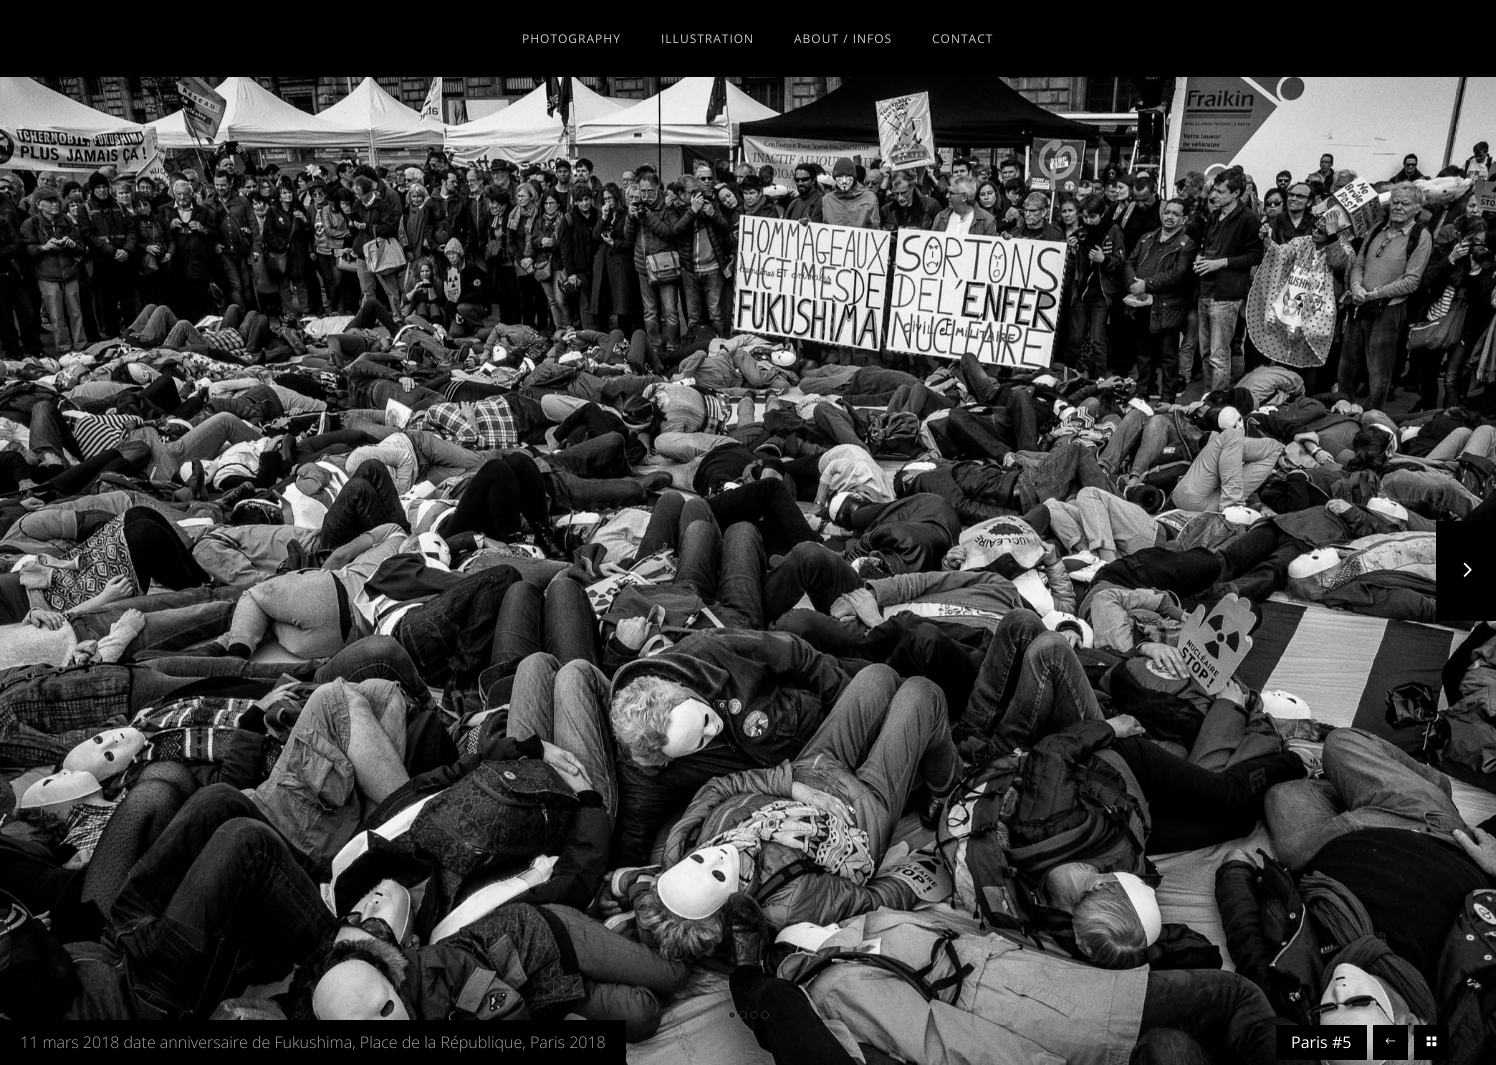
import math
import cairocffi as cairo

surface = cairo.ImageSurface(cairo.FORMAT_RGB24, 1496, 1065)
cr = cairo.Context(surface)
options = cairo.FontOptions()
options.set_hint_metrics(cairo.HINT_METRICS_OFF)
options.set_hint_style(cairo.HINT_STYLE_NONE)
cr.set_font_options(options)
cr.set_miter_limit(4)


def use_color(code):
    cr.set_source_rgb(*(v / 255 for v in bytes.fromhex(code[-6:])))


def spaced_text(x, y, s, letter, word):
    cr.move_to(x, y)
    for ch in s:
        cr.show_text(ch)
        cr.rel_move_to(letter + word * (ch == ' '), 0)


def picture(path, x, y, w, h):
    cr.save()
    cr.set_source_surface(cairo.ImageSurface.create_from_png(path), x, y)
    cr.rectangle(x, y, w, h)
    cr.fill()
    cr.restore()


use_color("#ffffff")
cr.paint()
use_color("#000000")
cr.rectangle(0, 0, 1496, 77)
cr.fill()
cr.select_font_face("Open Sans")
cr.set_font_size(12)
use_color("#cccccc")
spaced_text(522, 43, "PHOTOGRAPHY", 1, 0)
spaced_text(661, 43, "ILLUSTRATION", 1, 0)
spaced_text(794, 43, "ABOUT / INFOS", 1, 0)
spaced_text(932, 43, "CONTACT", 1, 0)
picture("img2.png", 0, 77, 1496, 988)
picture("img1.png", 728, 1011, 41, 8)
use_color("#000000")
cr.rectangle(0, 1020, 626, 45)
cr.fill()
cr.select_font_face("Open Sans Light")
cr.set_font_size(16)
use_color("#a2a2a2")
cr.move_to(20, 1048)
cr.show_text("11 mars 2018 date anniversaire de Fukushima, Place de la République, Paris 2018")
use_color("#000000")
cr.rectangle(1436, 521, 60, 100)
cr.fill()
picture("img3.png", 1463, 562, 9, 15)
cr.rectangle(1276, 1025, 91, 35)
cr.fill()
cr.select_font_face("Open Sans")
use_color("#ffffff")
cr.move_to(1291, 1048)
cr.show_text("Paris #5")
use_color("#000000")
cr.rectangle(1373, 1025, 35, 35)
cr.fill()
picture("img4.png", 1385, 1038, 11, 6)
cr.rectangle(1414, 1025, 35, 35)
cr.fill()
picture("img5.png", 1426, 1036, 11, 11)
surface.write_to_png("result.png")
